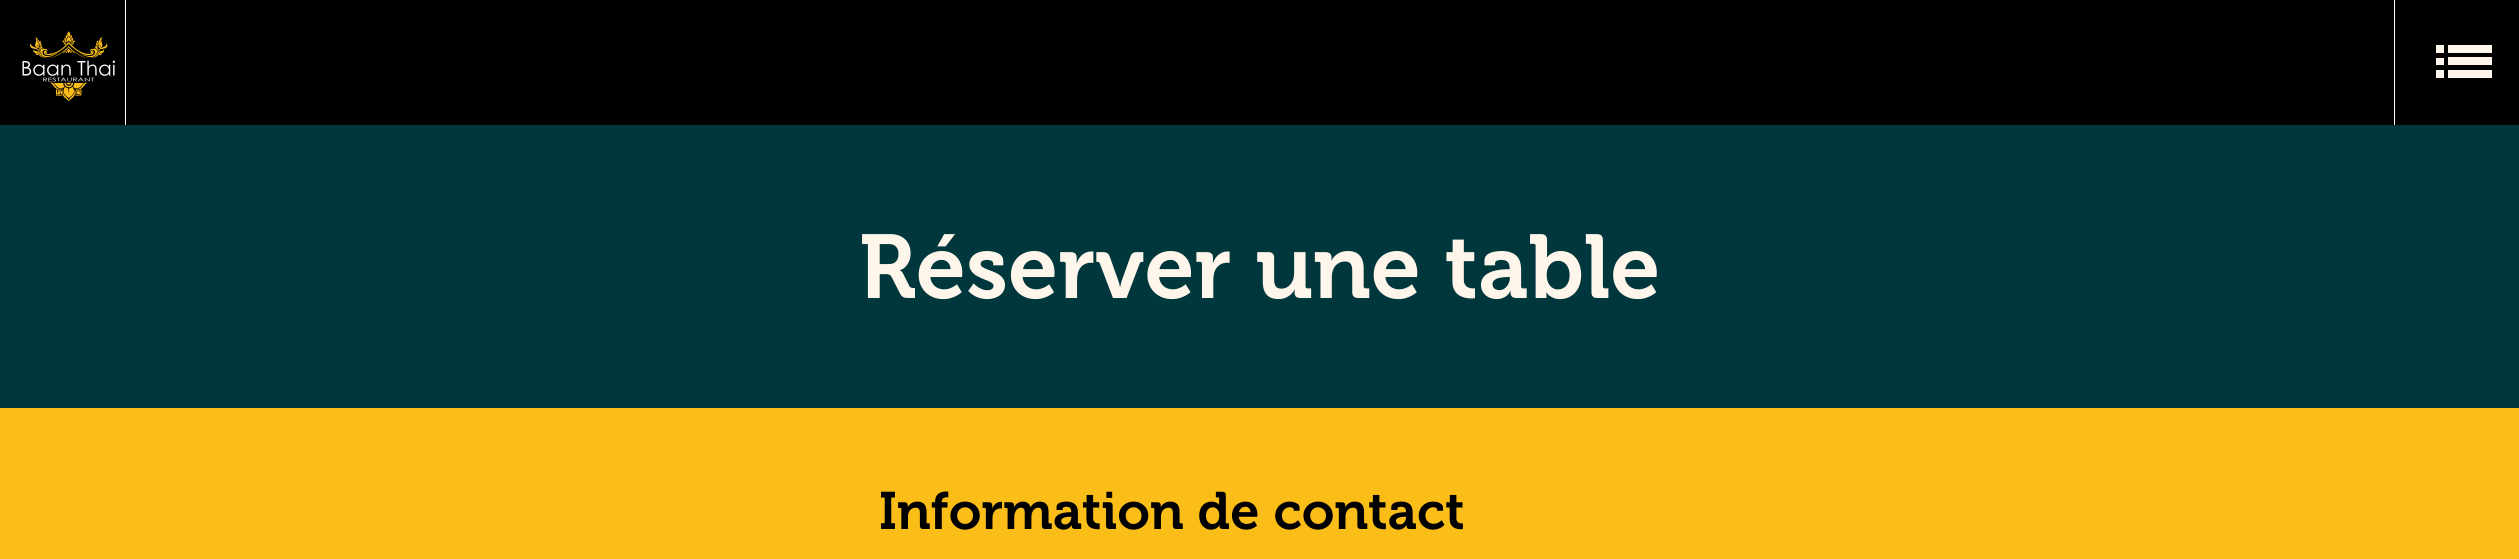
import math
import cairocffi as cairo

surface = cairo.ImageSurface(cairo.FORMAT_RGB24, 2519, 559)
cr = cairo.Context(surface)
options = cairo.FontOptions()
options.set_hint_metrics(cairo.HINT_METRICS_OFF)
options.set_hint_style(cairo.HINT_STYLE_NONE)
cr.set_font_options(options)
cr.set_miter_limit(4)


def use_color(code):
    cr.set_source_rgb(*(v / 255 for v in bytes.fromhex(code[-6:])))


def picture(path, x, y, w, h):
    cr.save()
    cr.set_source_surface(cairo.ImageSurface.create_from_png(path), x, y)
    cr.rectangle(x, y, w, h)
    cr.fill()
    cr.restore()


use_color("#fbbd18")
cr.paint()
use_color("#000000")
cr.rectangle(0, 0, 2519, 125)
cr.fill()
picture("img1.png", 22, 31, 93, 71)
use_color("#fffdfc")
cr.rectangle(125, 0, 1, 125)
cr.fill()
cr.rectangle(2394, 0, 1, 125)
cr.fill()
use_color("#fff6eb")
cr.rectangle(2436, 45, 8, 8)
cr.fill()
cr.rectangle(2448, 45, 44, 8)
cr.fill()
cr.rectangle(2436, 58, 8, 7)
cr.fill()
cr.rectangle(2448, 57, 44, 8)
cr.fill()
cr.rectangle(2436, 70, 8, 8)
cr.fill()
cr.rectangle(2448, 70, 44, 8)
cr.fill()
use_color("#00373d")
cr.rectangle(0, 125, 2519, 283)
cr.fill()
cr.select_font_face("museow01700 SemiBold")
cr.set_font_size(90)
use_color("#fff6eb")
cr.move_to(859, 298)
cr.show_text("Réserver une table")
cr.set_font_size(52.5)
use_color("#000000")
cr.move_to(879, 529)
cr.show_text("Information de contact")
surface.write_to_png("result.png")
